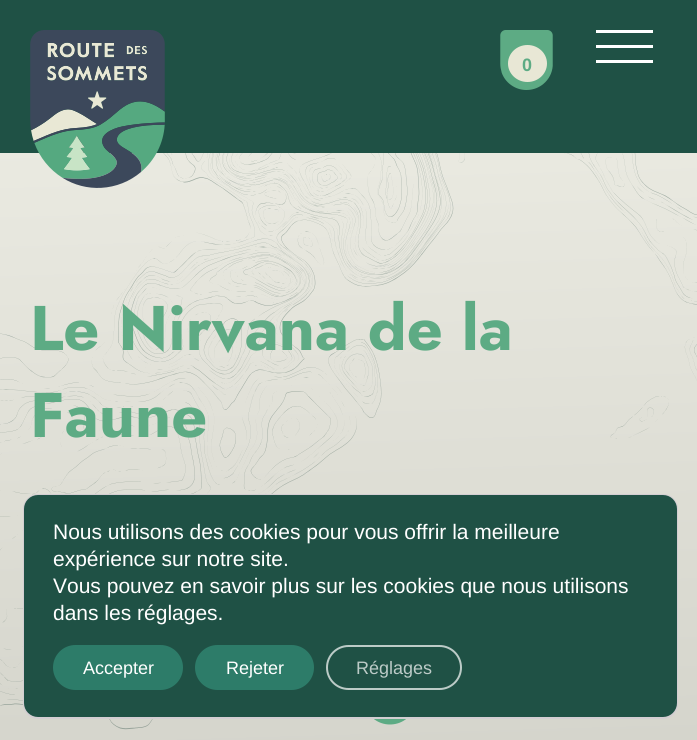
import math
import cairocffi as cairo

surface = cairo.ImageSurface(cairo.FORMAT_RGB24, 697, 740)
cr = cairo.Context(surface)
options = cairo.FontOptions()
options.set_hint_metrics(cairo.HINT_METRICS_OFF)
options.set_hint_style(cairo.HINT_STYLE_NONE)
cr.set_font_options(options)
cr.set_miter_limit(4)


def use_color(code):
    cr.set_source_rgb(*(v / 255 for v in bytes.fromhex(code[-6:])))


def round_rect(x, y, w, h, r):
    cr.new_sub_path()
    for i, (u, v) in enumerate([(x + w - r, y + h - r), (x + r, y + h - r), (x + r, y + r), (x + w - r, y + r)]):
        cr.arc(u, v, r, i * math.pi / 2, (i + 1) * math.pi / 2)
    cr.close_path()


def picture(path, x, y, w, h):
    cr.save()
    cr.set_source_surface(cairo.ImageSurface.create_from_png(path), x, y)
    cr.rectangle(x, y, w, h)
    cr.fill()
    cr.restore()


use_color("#ffffff")
cr.paint()
use_color("#1f5145")
cr.rectangle(0, 0, 697, 153)
cr.fill()
gradient = cairo.LinearGradient(338, -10, 360, 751)
gradient.add_color_stop_rgba(0, 0.937, 0.937, 0.902, 1)
gradient.add_color_stop_rgba(1, 0.835, 0.835, 0.8, 1)
cr.set_source(gradient)
cr.rectangle(0, 153, 697, 587)
cr.fill()
picture("img3.png", 0, 153, 697, 577)
picture("img1.png", 30, 30, 135, 158)
use_color("#ffffff")
cr.rectangle(596, 30, 57, 3)
cr.fill()
cr.rectangle(596, 45, 57, 3)
cr.fill()
cr.rectangle(596, 60, 57, 3)
cr.fill()
picture("img2.png", 500, 30, 53, 60)
cr.select_font_face("Liberation Sans", cairo.FONT_SLANT_NORMAL, cairo.FONT_WEIGHT_BOLD)
cr.set_font_size(18)
use_color("#5dab84")
cr.move_to(522, 71)
cr.show_text("0")
cr.select_font_face("Jost", cairo.FONT_SLANT_NORMAL, cairo.FONT_WEIGHT_BOLD)
cr.set_font_size(63)
cr.move_to(30, 350)
cr.show_text("Le Nirvana de la")
cr.move_to(30, 437)
cr.show_text("Faune")
picture("img4.png", 374, 719, 32, 6)
round_rect(24, 495, 653, 223, 14)
use_color("#d3ced2")
cr.stroke()
use_color("#1f5145")
round_rect(24, 495, 653, 222, 14)
cr.fill()
cr.select_font_face("Liberation Sans")
cr.set_font_size(21)
use_color("#ffffff")
cr.move_to(53, 539)
cr.show_text("Nous utilisons des cookies pour vous offrir la meilleure")
cr.move_to(53, 566)
cr.show_text("expérience sur notre site.")
cr.move_to(53, 593)
cr.show_text("Vous pouvez en savoir plus sur les cookies que nous utilisons")
cr.move_to(53, 620)
cr.show_text("dans les réglages.")
use_color("#2d7c69")
round_rect(53, 645, 130, 45, 22.5)
cr.fill()
cr.set_font_size(18)
use_color("#ffffff")
cr.move_to(83, 674)
cr.show_text("Accepter")
use_color("#2d7c69")
round_rect(195, 645, 119, 45, 22.5)
cr.fill()
use_color("#ffffff")
cr.move_to(226, 674)
cr.show_text("Rejeter")
round_rect(327, 646, 134, 43, 21.5)
use_color("#bccbc7")
cr.stroke()
cr.move_to(356, 674)
cr.show_text("Réglages")
surface.write_to_png("result.png")
